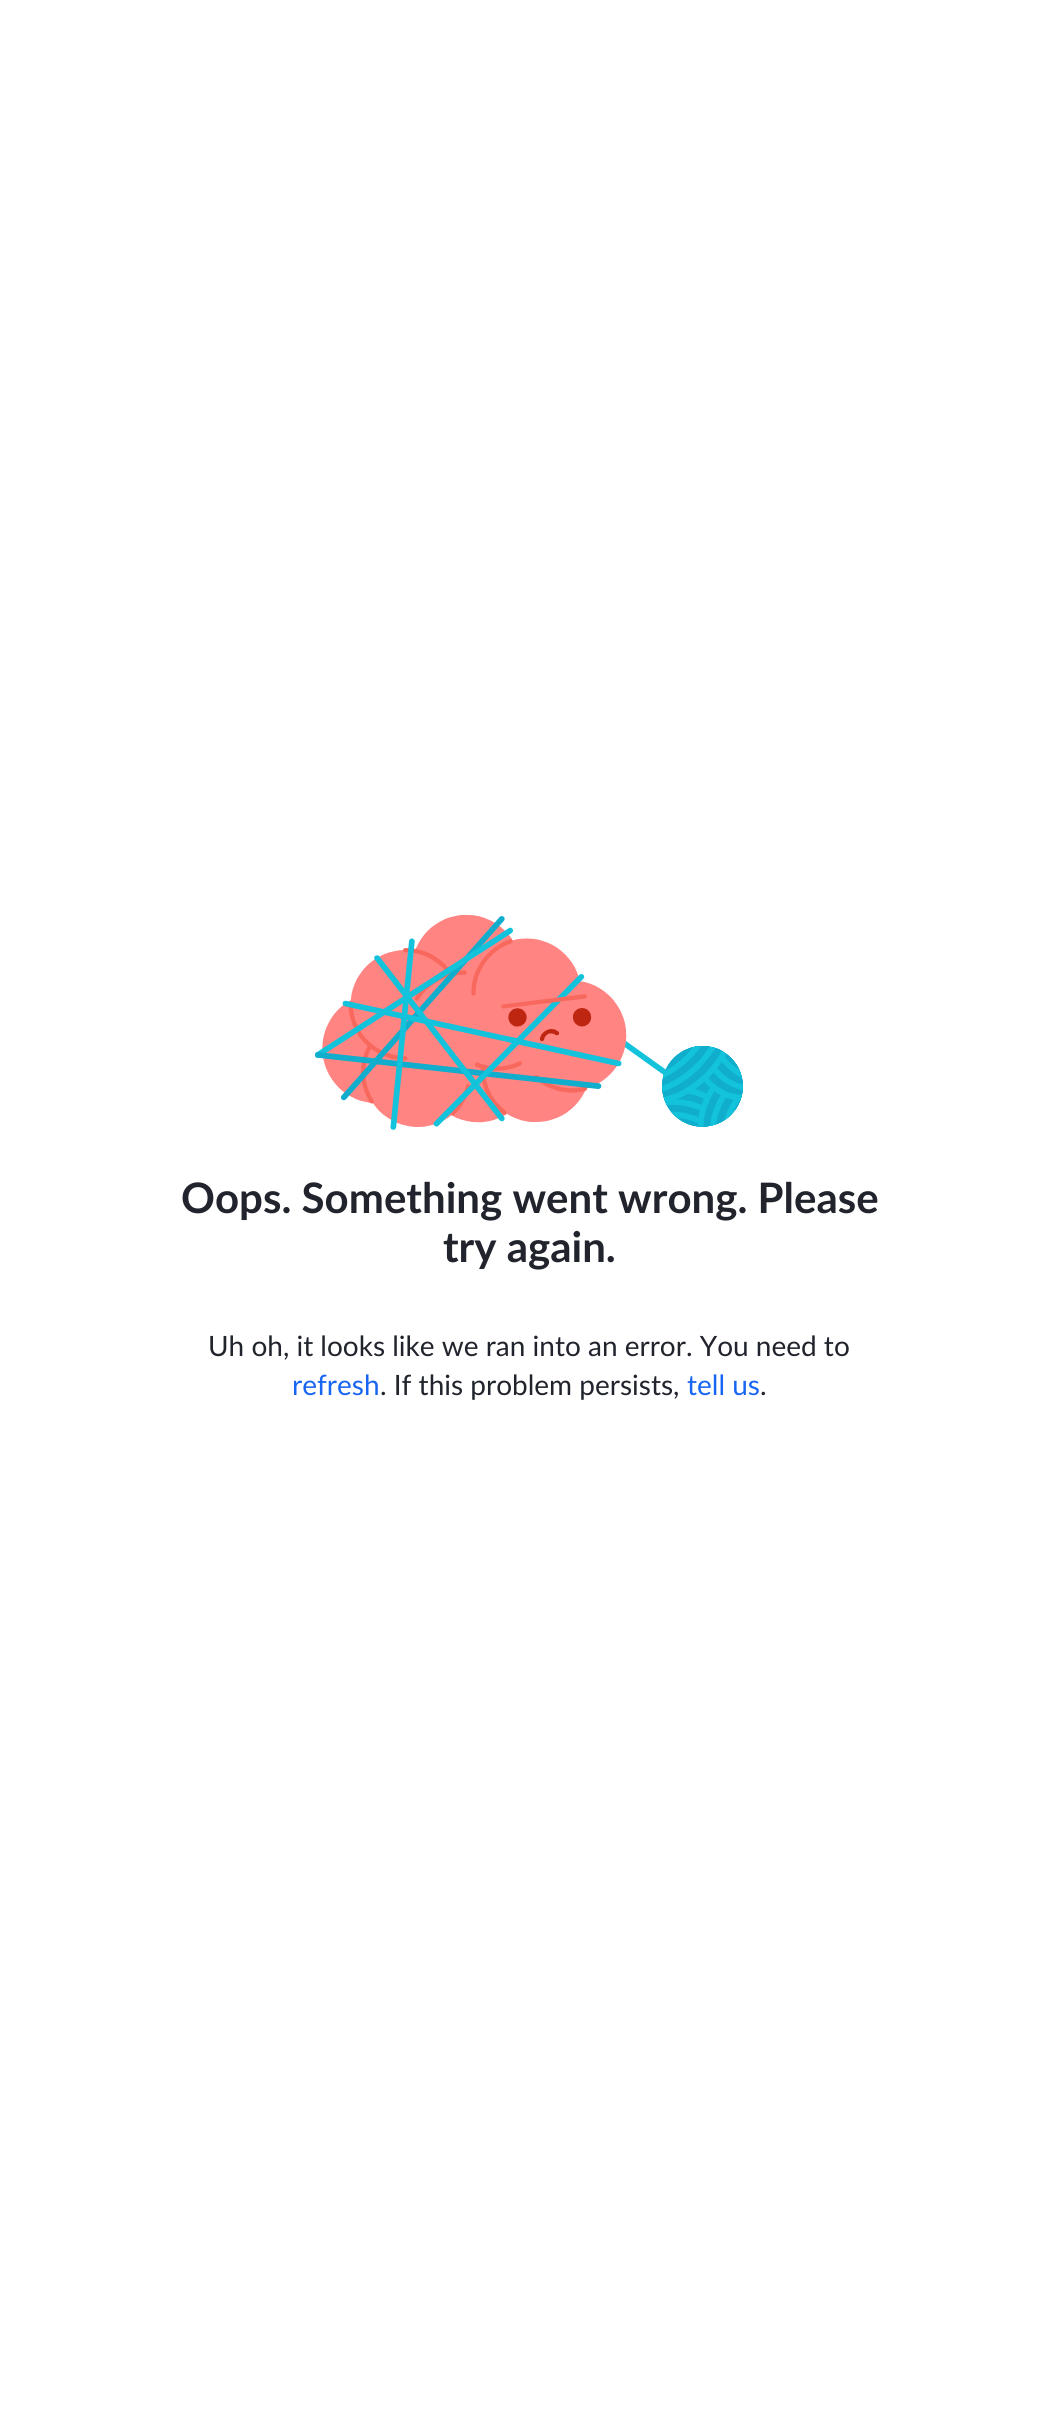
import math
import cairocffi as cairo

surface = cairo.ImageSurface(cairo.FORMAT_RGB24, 1058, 2422)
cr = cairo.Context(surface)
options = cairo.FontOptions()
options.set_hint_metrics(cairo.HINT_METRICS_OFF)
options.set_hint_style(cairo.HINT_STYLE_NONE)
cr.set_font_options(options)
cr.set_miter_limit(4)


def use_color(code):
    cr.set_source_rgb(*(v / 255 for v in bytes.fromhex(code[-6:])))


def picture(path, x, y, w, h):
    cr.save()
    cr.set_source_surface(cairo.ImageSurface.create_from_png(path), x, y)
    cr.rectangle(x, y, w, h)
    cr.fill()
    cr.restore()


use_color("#ffffff")
cr.paint()
picture("img1.png", 315, 914, 428, 216)
cr.select_font_face("Lato", cairo.FONT_SLANT_NORMAL, cairo.FONT_WEIGHT_BOLD)
cr.set_font_size(42)
use_color("#21242c")
cr.move_to(181, 1213)
cr.show_text("Oops. Something went wrong. Please")
cr.move_to(443, 1262)
cr.show_text("try again.")
cr.select_font_face("Lato")
cr.set_font_size(28)
cr.move_to(208, 1356)
cr.show_text("Uh oh, it looks like we ran into an error. You need to")
use_color("#1865f2")
cr.move_to(292, 1395)
cr.show_text("refresh")
use_color("#21242c")
cr.move_to(380, 1395)
cr.show_text(". If this problem persists,")
use_color("#1865f2")
cr.move_to(687, 1395)
cr.show_text("tell us")
use_color("#21242c")
cr.move_to(760, 1395)
cr.show_text(".")
surface.write_to_png("result.png")
